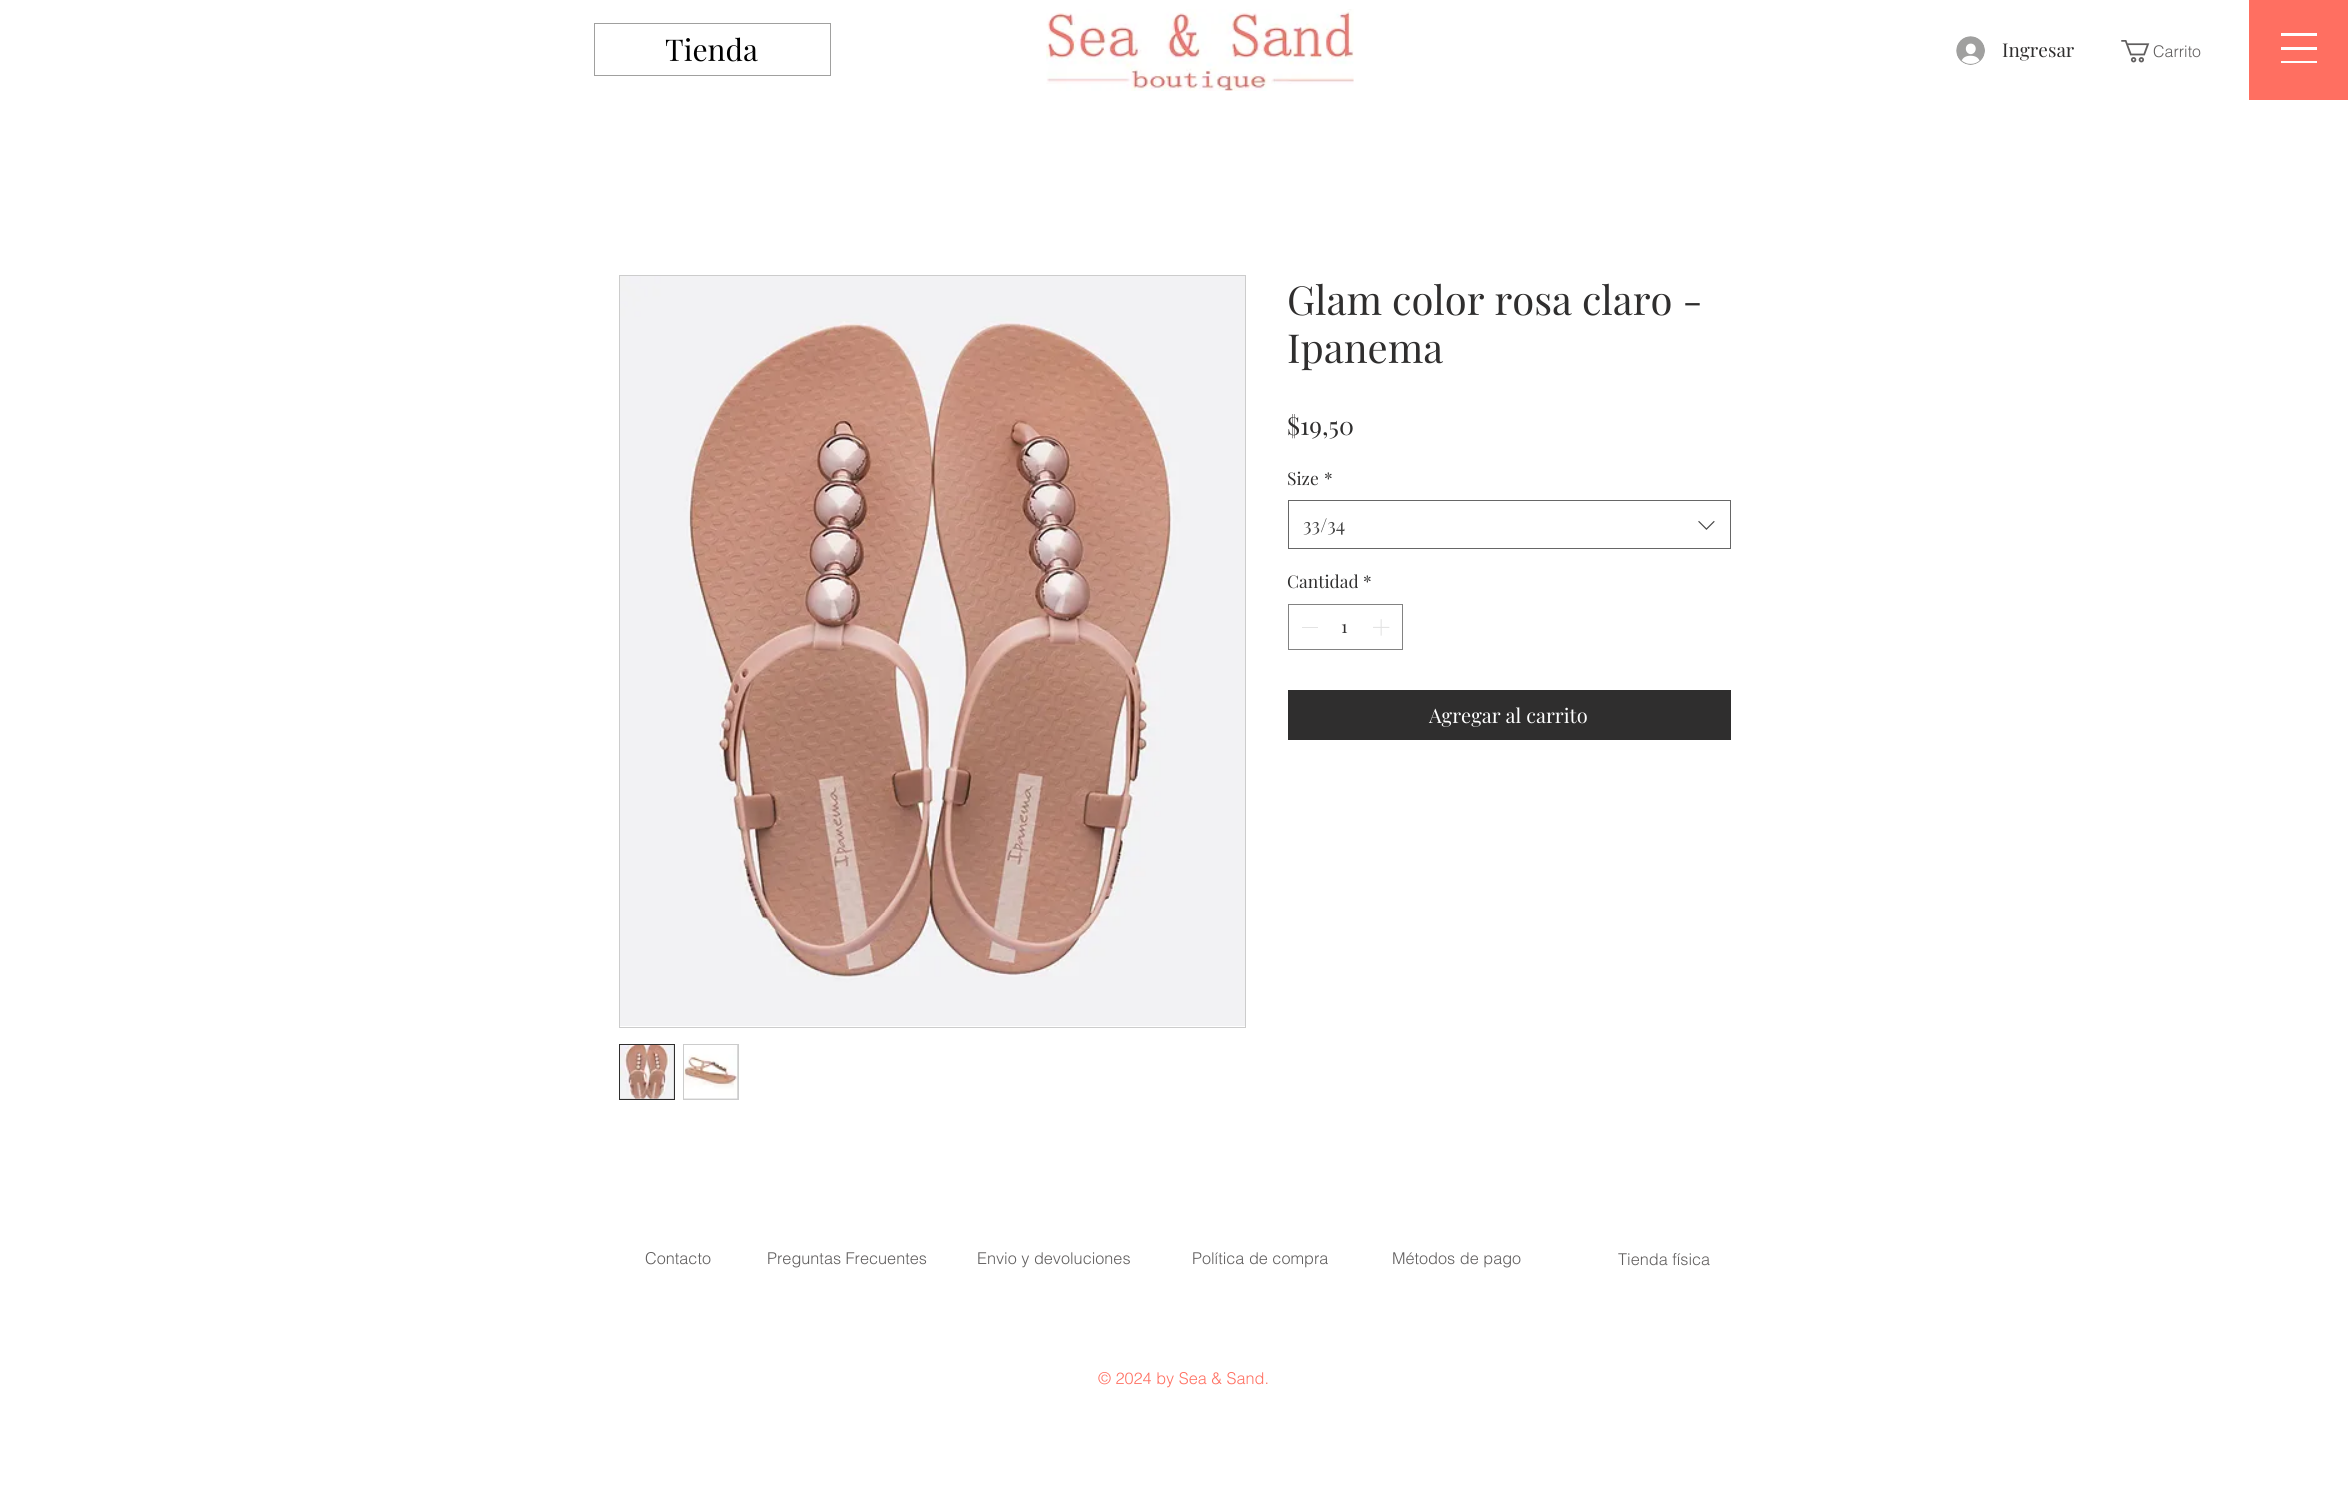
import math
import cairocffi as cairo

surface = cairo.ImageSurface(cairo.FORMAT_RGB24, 2348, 1493)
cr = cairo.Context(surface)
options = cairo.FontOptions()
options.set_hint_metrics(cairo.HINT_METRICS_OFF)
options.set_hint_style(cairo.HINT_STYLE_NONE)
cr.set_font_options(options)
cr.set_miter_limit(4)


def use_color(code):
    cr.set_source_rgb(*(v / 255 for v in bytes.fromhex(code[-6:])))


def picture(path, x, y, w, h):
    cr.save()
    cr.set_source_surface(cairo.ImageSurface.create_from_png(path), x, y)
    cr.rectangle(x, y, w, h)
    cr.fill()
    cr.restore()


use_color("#ffffff")
cr.paint()
cr.rectangle(594.5, 23.5, 236, 52)
use_color("#a0a09f")
cr.set_line_width(1)
cr.stroke()
cr.select_font_face("Playfair Display")
cr.set_font_size(30)
use_color("#000000")
cr.move_to(665, 61)
cr.show_text("Tienda")
picture("img1.png", 1046, 9, 308, 82)
picture("img2.png", 1956, 36, 29, 29)
cr.set_font_size(19)
use_color("#2f2e2e")
cr.move_to(2002, 57)
cr.show_text("Ingresar")
picture("img3.png", 2121, 40, 29, 23)
cr.select_font_face("helvetica Light")
cr.set_font_size(16)
use_color("#605e5e")
cr.move_to(2153, 57)
cr.show_text("Carrito")
use_color("#ff6f61")
cr.rectangle(2249, 0, 99, 100)
cr.fill()
use_color("#ffffff")
cr.rectangle(2281, 33, 36, 3)
cr.fill()
cr.rectangle(2281, 47, 36, 3)
cr.fill()
cr.rectangle(2281, 61, 36, 2)
cr.fill()
cr.rectangle(619.5, 275.5, 626, 752)
use_color("#cccccc")
cr.stroke()
picture("img4.png", 620, 276, 625, 750)
cr.rectangle(619.5, 1044.5, 55, 55)
cr.fill_preserve()
use_color("#2f2e2e")
cr.stroke()
picture("img5.png", 620, 1045, 54, 54)
use_color("#cccccc")
cr.rectangle(683, 1044, 56, 56)
cr.fill()
picture("img6.png", 684, 1045, 54, 54)
cr.select_font_face("Playfair Display")
cr.set_font_size(40)
use_color("#2f2e2e")
cr.move_to(1287, 315)
cr.show_text("Glam color rosa claro -")
cr.move_to(1287, 363)
cr.show_text("Ipanema")
cr.set_font_size(25)
cr.move_to(1287, 435)
cr.show_text("$19,50")
cr.set_font_size(17.5)
cr.move_to(1287, 485)
cr.show_text("Size")
cr.move_to(1324, 485)
cr.show_text("*")
cr.rectangle(1288.5, 500.5, 442, 48)
use_color("#666666")
cr.stroke()
cr.set_font_size(19)
use_color("#444444")
cr.move_to(1303, 532)
cr.show_text("33/34")
picture("img7.png", 1698, 520, 17, 10)
cr.set_font_size(17.5)
use_color("#2f2e2e")
cr.move_to(1287, 588)
cr.show_text("Cantidad")
cr.move_to(1363, 588)
cr.show_text("*")
cr.rectangle(1288.5, 604.5, 114, 45)
use_color("#828282")
cr.stroke()
use_color("#e3e3e3")
cr.rectangle(1302, 627, 16, 1)
cr.fill()
use_color("#2f2e2e")
cr.move_to(1341, 633)
cr.show_text("1")
picture("img8.png", 1373, 619, 17, 17)
cr.rectangle(1288, 690, 443, 50)
cr.fill()
cr.set_font_size(20)
use_color("#ffffff")
cr.move_to(1429, 723)
cr.show_text("Agregar al carrito")
cr.select_font_face("helvetica Light")
cr.set_font_size(16.25)
use_color("#605e5e")
cr.move_to(645, 1264)
cr.show_text("Contacto")
cr.move_to(767, 1264)
cr.show_text("Preguntas Frecuentes")
cr.move_to(977, 1264)
cr.show_text("Envio y devoluciones")
cr.move_to(1192, 1264)
cr.show_text("Política de compra")
cr.move_to(1392, 1264)
cr.show_text("Métodos de pago")
cr.move_to(1618, 1265)
cr.show_text("Tienda física")
use_color("#ff6f61")
cr.move_to(1098, 1384)
cr.show_text("© 2024 by Sea & Sand.")
surface.write_to_png("result.png")
